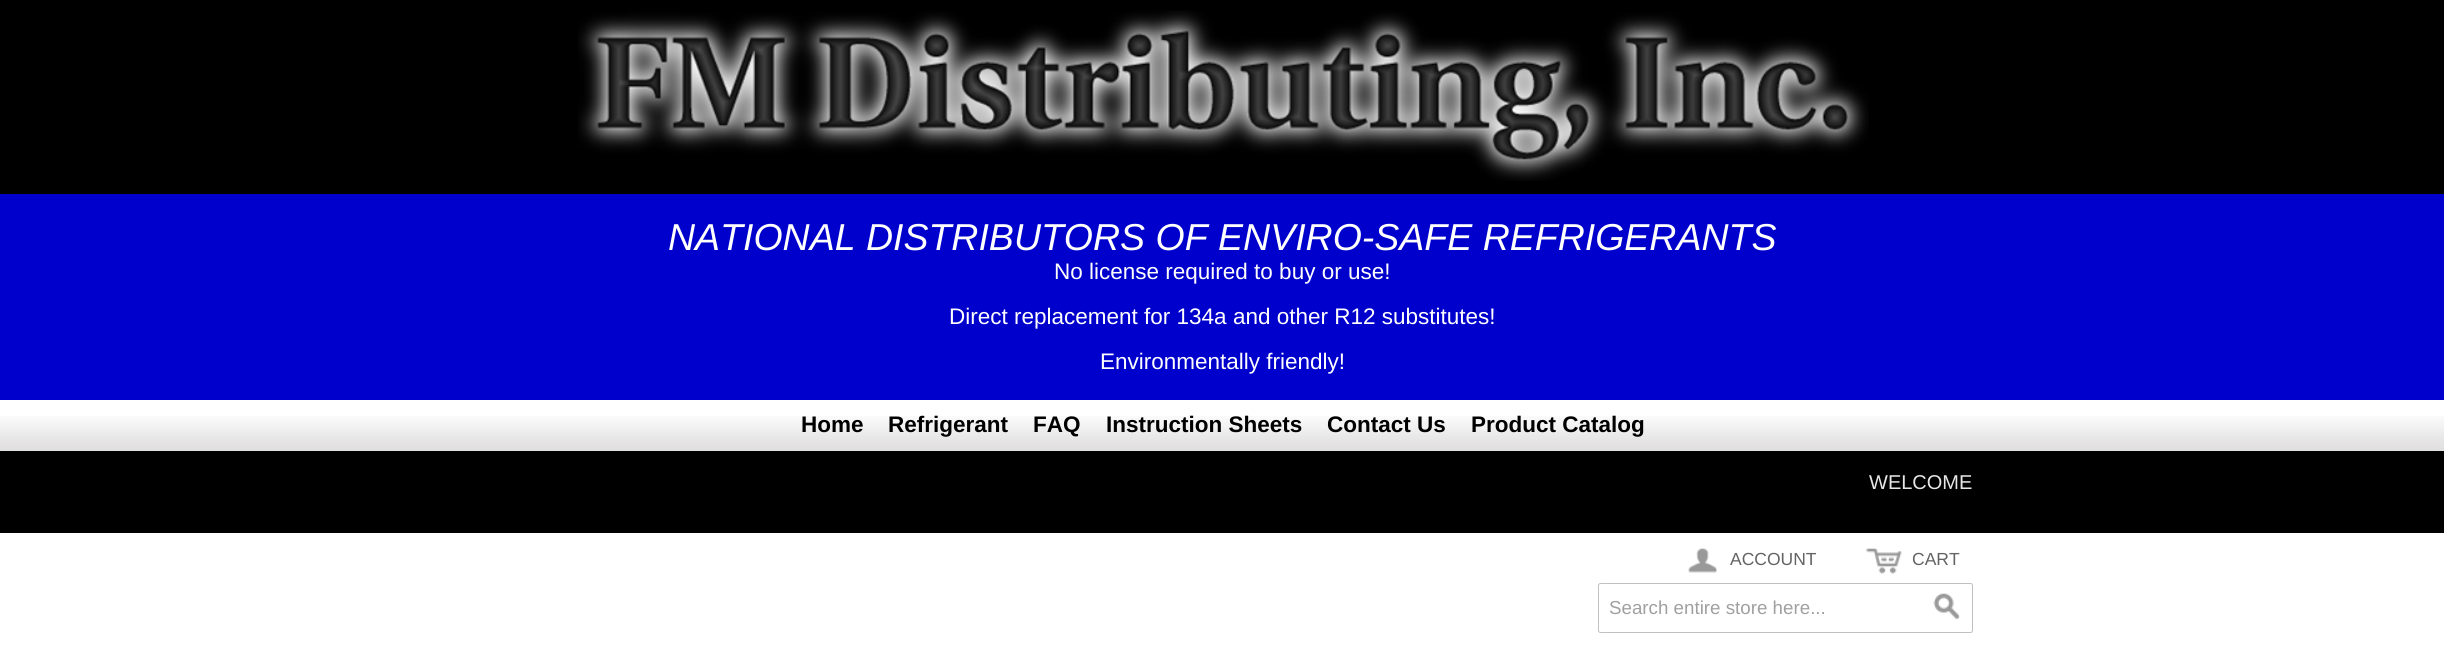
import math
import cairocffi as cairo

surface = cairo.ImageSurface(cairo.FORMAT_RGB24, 2444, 664)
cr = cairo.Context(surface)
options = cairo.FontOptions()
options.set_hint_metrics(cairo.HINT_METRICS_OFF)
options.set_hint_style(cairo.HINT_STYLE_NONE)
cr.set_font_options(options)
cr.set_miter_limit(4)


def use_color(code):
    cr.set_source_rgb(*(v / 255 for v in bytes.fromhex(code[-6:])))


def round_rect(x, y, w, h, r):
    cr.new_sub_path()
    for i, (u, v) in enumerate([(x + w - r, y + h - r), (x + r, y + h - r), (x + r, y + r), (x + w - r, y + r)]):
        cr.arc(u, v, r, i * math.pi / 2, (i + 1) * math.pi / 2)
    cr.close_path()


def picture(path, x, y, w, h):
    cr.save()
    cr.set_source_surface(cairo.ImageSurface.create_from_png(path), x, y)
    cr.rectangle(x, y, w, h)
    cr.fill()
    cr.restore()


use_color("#ffffff")
cr.paint()
use_color("#000000")
cr.rectangle(0, 0, 2444, 194)
cr.fill()
picture("img1.png", 578, 10, 1291, 171)
use_color("#0000cc")
cr.rectangle(0, 194, 2444, 206)
cr.fill()
cr.select_font_face("Liberation Sans", cairo.FONT_SLANT_ITALIC)
cr.set_font_size(37.5)
use_color("#ffffff")
cr.move_to(668, 250)
cr.show_text("NATIONAL DISTRIBUTORS OF ENVIRO-SAFE REFRIGERANTS")
cr.select_font_face("Liberation Sans")
cr.set_font_size(22.5)
cr.move_to(1054, 279)
cr.show_text("No license required to buy or use!")
cr.move_to(949, 324)
cr.show_text("Direct replacement for 134a and other R12 substitutes!")
cr.move_to(1100, 369)
cr.show_text("Environmentally friendly!")
picture("img2.png", 0, 416, 2444, 35)
cr.select_font_face("Liberation Sans", cairo.FONT_SLANT_NORMAL, cairo.FONT_WEIGHT_BOLD)
use_color("#000000")
cr.move_to(801, 432)
cr.show_text("Home")
cr.move_to(888, 432)
cr.show_text("Refrigerant")
cr.move_to(1033, 432)
cr.show_text("FAQ")
cr.move_to(1106, 432)
cr.show_text("Instruction Sheets")
cr.move_to(1327, 432)
cr.show_text("Contact Us")
cr.move_to(1471, 432)
cr.show_text("Product Catalog")
cr.rectangle(0, 451, 2444, 82)
cr.fill()
cr.select_font_face("Liberation Sans")
cr.set_font_size(20)
use_color("#e6e6e6")
cr.move_to(1869, 489)
cr.show_text("WELCOME")
picture("img3.png", 1688, 548, 29, 25)
cr.set_font_size(17.5)
use_color("#636363")
cr.move_to(1730, 565)
cr.show_text("ACCOUNT")
picture("img4.png", 1866, 548, 36, 26)
cr.move_to(1912, 565)
cr.show_text("CART")
round_rect(1598.5, 583.5, 374, 49, 2)
use_color("#c0c0c0")
cr.set_line_width(1)
cr.stroke()
cr.set_font_size(18.75)
use_color("#a0a0a0")
cr.move_to(1609, 614)
cr.show_text("Search entire store here...")
picture("img5.png", 1933, 593, 27, 26)
surface.write_to_png("result.png")
